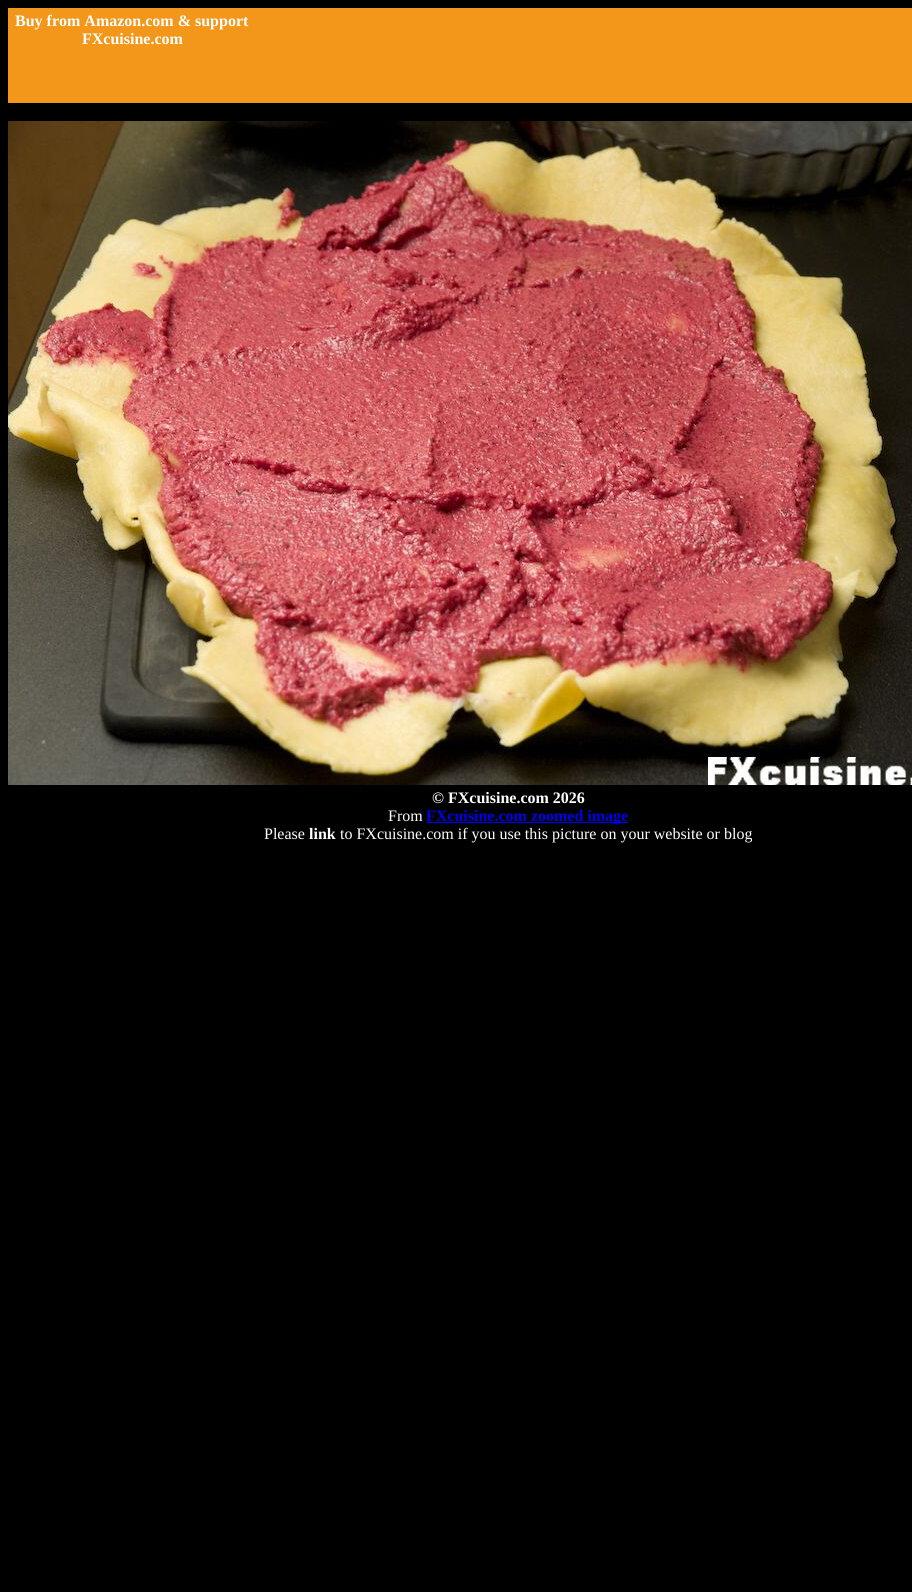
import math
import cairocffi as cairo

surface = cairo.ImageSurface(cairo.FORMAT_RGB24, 912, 1592)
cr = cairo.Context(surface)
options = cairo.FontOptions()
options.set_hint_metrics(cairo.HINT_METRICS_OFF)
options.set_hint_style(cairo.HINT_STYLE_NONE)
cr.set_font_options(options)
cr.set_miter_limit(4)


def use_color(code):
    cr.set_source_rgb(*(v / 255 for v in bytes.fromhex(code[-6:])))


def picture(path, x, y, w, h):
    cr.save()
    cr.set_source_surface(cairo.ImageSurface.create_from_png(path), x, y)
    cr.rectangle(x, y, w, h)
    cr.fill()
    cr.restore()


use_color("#000000")
cr.paint()
use_color("#f3971a")
cr.rectangle(8, 8, 904, 95)
cr.fill()
cr.select_font_face("Liberation Serif", cairo.FONT_SLANT_NORMAL, cairo.FONT_WEIGHT_BOLD)
cr.set_font_size(16)
use_color("#ffffff")
cr.move_to(15, 26)
cr.show_text("Buy from Amazon.com & support")
cr.move_to(82, 44)
cr.show_text("FXcuisine.com")
picture("img1.png", 8, 121, 904, 664)
cr.move_to(432, 803)
cr.show_text("© FXcuisine.com 2026")
cr.select_font_face("Liberation Serif")
cr.move_to(388, 821)
cr.show_text("From")
use_color("#0000ee")
cr.rectangle(426, 822, 202, 1)
cr.fill()
cr.select_font_face("Liberation Serif", cairo.FONT_SLANT_NORMAL, cairo.FONT_WEIGHT_BOLD)
cr.move_to(426, 821)
cr.show_text("FXcuisine.com zoomed image")
cr.select_font_face("Liberation Serif")
use_color("#ffffff")
cr.move_to(264, 839)
cr.show_text("Please")
cr.select_font_face("Liberation Serif", cairo.FONT_SLANT_NORMAL, cairo.FONT_WEIGHT_BOLD)
cr.move_to(309, 839)
cr.show_text("link")
cr.select_font_face("Liberation Serif")
cr.move_to(340, 839)
cr.show_text("to FXcuisine.com if you use this picture on your website or blog")
surface.write_to_png("result.png")
